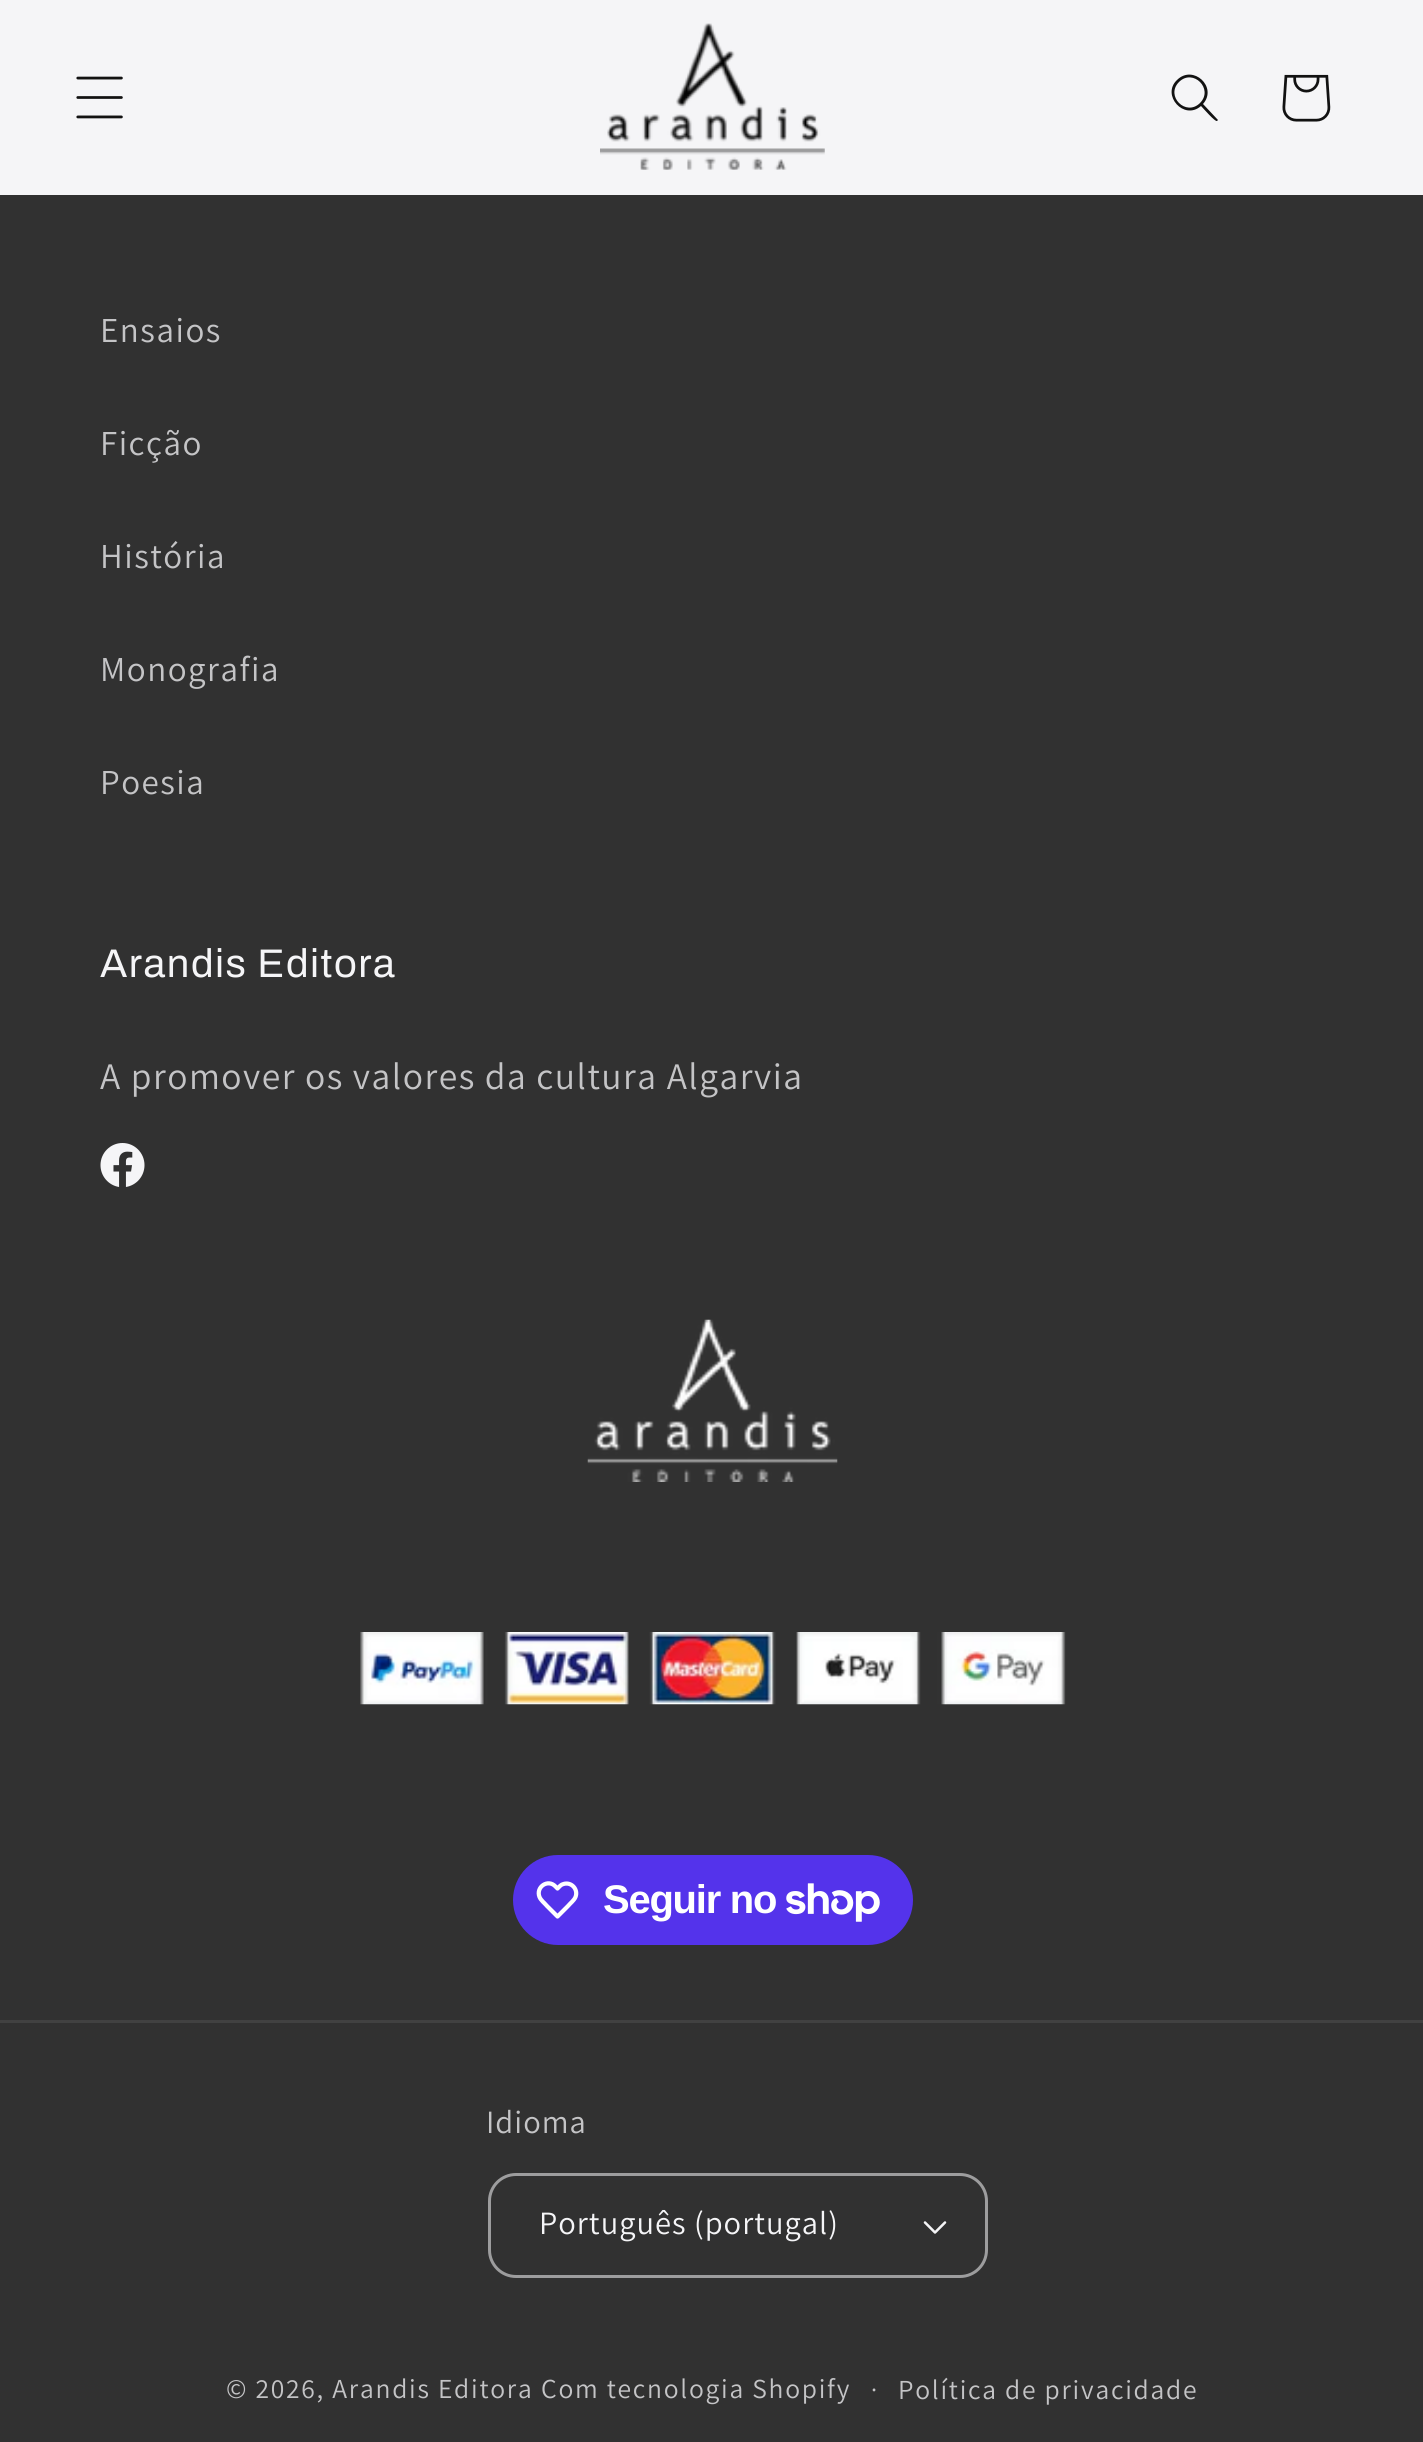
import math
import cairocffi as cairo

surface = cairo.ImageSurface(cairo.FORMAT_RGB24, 1423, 2442)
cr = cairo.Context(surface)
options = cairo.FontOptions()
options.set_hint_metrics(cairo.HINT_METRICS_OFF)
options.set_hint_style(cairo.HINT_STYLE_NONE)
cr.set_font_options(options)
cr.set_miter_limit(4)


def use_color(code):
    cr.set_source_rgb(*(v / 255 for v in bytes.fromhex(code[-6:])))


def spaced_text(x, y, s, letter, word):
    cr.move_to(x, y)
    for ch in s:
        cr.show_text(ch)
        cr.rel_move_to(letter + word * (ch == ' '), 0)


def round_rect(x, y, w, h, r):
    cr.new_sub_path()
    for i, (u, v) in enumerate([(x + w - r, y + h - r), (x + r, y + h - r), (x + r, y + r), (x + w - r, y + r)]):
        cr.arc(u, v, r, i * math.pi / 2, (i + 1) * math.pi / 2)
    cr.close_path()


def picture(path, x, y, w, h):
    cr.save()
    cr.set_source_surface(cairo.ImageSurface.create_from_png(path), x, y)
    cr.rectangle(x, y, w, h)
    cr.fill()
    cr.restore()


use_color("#313131")
cr.paint()
use_color("#f5f5f7")
cr.rectangle(0, 0, 1423, 195)
cr.fill()
picture("img1.png", 76, 76, 47, 43)
picture("img2.png", 600, 23, 225, 147)
use_color("#121212")
cr.set_fill_rule(cairo.FILL_RULE_EVEN_ODD)
cr.new_path()
cr.move_to(1200, 103)
cr.curve_to(1186, 117, 1165, 96, 1179, 82)
cr.curve_to(1193, 68, 1214, 89, 1200, 103)
cr.close_path()
cr.move_to(1201, 106)
cr.curve_to(1184, 121, 1161, 95, 1177, 80)
cr.curve_to(1193, 64, 1218, 87, 1203, 104)
cr.line_to(1218, 120)
cr.line_to(1217, 121)
cr.curve_to(1215, 122, 1203, 108, 1201, 106)
cr.close_path()
cr.fill()
picture("img3.png", 1282, 74, 49, 48)
cr.select_font_face("Assistant")
cr.set_font_size(35)
use_color("#c4c4c6")
spaced_text(100, 342, "Ensaios", 1.5, 0)
spaced_text(100, 455, "Ficção", 1.5, 0)
spaced_text(100, 568, "História", 1.5, 0)
spaced_text(100, 681, "Monografia", 1.5, 0)
spaced_text(100, 794, "Poesia", 1.5, 0)
cr.select_font_face("Archivo")
cr.set_font_size(40)
use_color("#f5f5f7")
spaced_text(100, 977, "Arandis Editora", 1.5, 0)
cr.select_font_face("Assistant")
cr.set_font_size(37.5)
use_color("#c4c4c6")
spaced_text(100, 1089, "A promover os valores da cultura Algarvia", 1.5, 0)
picture("img4.png", 100, 1143, 45, 44)
picture("img5.png", 587, 1319, 251, 163)
picture("img6.png", 360, 1632, 706, 73)
use_color("#5433eb")
round_rect(513, 1855, 400, 90, 45)
cr.fill()
cr.new_path()
cr.move_to(555.5, 1886.5)
cr.line_to(557.5, 1888.5)
cr.curve_to(559.5, 1886.5, 561, 1884.5, 563.5, 1884)
cr.curve_to(571.5, 1881.5, 578.5, 1889.5, 575.5, 1897)
cr.curve_to(574, 1900.5, 570.5, 1903, 568, 1906)
cr.line_to(557.5, 1916.5)
cr.line_to(547, 1906)
cr.curve_to(544.5, 1903, 541, 1900.5, 539.5, 1897)
cr.curve_to(535.5, 1887, 548, 1878.5, 555.5, 1886.5)
cr.close_path()
use_color("#ffffff")
cr.set_line_width(4.2)
cr.set_line_join(cairo.LINE_JOIN_ROUND)
cr.stroke()
cr.select_font_face("Liberation Sans", cairo.FONT_SLANT_NORMAL, cairo.FONT_WEIGHT_BOLD)
cr.set_font_size(40)
spaced_text(603, 1913, "Seguir no", -1.25, 0)
picture("img7.png", 786, 1883, 94, 39)
use_color("#414141")
cr.rectangle(0, 2020, 1423, 3)
cr.fill()
cr.select_font_face("Assistant")
cr.set_font_size(32.5)
use_color("#c4c4c6")
spaced_text(486, 2133, "Idioma", 1, 0)
picture("img8.png", 923, 2221, 24, 13)
round_rect(489.5, 2174.5, 497, 102, 26.5)
use_color("#9d9d9e")
cr.set_line_width(3)
cr.set_line_join(cairo.LINE_JOIN_MITER)
cr.stroke()
use_color("#f5f5f7")
spaced_text(539, 2234, "Português (portugal)", 1, 0)
cr.set_font_size(27.5)
use_color("#c4c4c6")
spaced_text(226, 2398, "© 2026, Arandis Editora", 1.75, 0)
spaced_text(541, 2398, "Com tecnologia Shopify", 1.75, 0)
cr.set_font_size(25)
spaced_text(871, 2398, "·", 1.75, 0)
cr.set_font_size(27.5)
spaced_text(898, 2399, "Política de privacidade", 1.75, 0)
surface.write_to_png("result.png")
